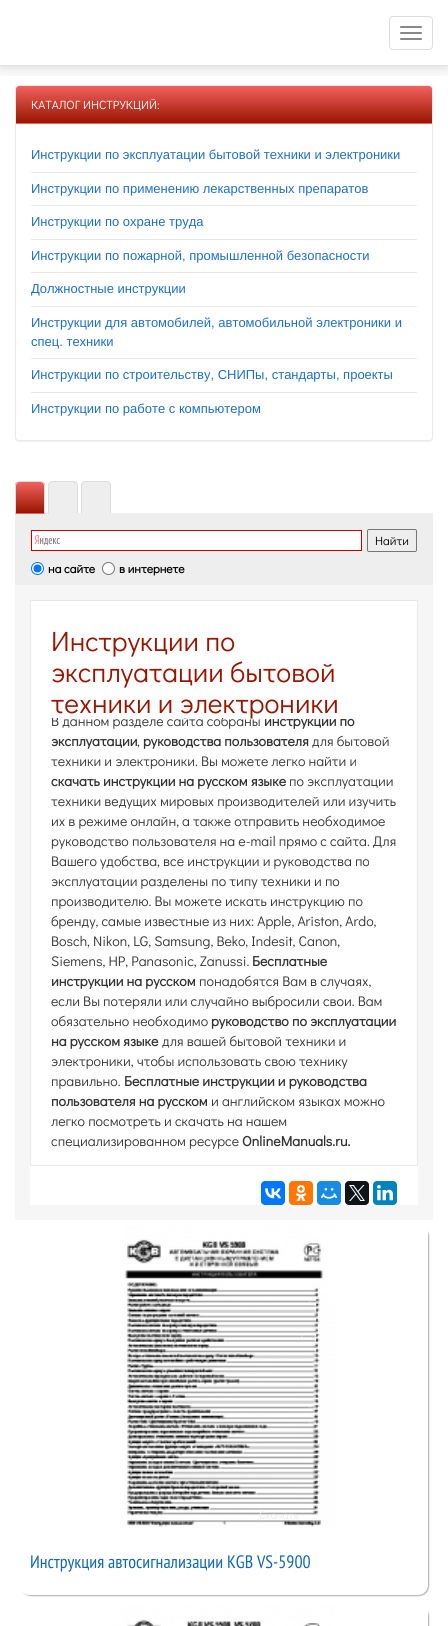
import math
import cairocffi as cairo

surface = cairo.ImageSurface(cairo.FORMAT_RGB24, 448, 1626)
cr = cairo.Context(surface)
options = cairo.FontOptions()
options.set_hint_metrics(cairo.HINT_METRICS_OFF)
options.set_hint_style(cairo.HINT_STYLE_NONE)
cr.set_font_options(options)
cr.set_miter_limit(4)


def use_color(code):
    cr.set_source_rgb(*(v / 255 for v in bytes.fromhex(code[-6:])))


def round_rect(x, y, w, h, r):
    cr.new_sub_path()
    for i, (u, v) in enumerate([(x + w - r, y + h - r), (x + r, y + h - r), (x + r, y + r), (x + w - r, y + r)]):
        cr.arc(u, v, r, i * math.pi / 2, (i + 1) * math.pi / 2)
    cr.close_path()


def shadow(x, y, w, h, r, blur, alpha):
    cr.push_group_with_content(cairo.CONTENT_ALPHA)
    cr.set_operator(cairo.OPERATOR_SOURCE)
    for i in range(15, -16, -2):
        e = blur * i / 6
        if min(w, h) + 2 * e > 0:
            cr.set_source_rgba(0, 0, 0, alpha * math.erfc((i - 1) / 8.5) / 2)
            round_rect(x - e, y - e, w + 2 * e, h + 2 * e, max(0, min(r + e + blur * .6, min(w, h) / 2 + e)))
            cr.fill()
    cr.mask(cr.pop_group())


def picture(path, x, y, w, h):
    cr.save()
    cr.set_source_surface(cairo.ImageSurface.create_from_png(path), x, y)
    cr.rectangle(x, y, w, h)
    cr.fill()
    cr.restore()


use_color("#ffffff")
cr.paint()
use_color("#000000")
shadow(15, 86, 418, 356, 4, 0.5, 0.05)
use_color("#ffffff")
round_rect(15.5, 85.5, 417, 355, 3.5)
cr.fill_preserve()
use_color("#e9e9e9")
cr.set_line_width(1)
cr.stroke()
gradient = cairo.LinearGradient(224, 86, 224, 123)
gradient.add_color_stop_rgba(0, 0.949, 0.384, 0.369, 1)
gradient.add_color_stop_rgba(1, 0.6, 0.082, 0, 1)
cr.set_source(gradient)
cr.new_path()
cr.move_to(19, 86)
cr.line_to(429, 86)
cr.curve_to(430.5, 86, 432, 87.5, 432, 89)
cr.line_to(432, 123)
cr.line_to(16, 123)
cr.line_to(16, 89)
cr.curve_to(16, 87.5, 17.5, 86, 19, 86)
cr.close_path()
cr.fill()
cr.save()
cr.rectangle(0, 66, 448, 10)
cr.clip()
use_color("#000000")
shadow(0, 0, 448, 66, 0, 8, 0.18)
cr.restore()
use_color("#e4e4e4")
cr.rectangle(0, 65, 448, 1)
cr.fill()
round_rect(389.5, 16.5, 43, 33, 3.5)
use_color("#dddddd")
cr.stroke()
use_color("#888888")
round_rect(400, 26, 22, 2, 1)
cr.fill()
round_rect(400, 32, 22, 2, 1)
cr.fill()
round_rect(400, 38, 22, 2, 1)
cr.fill()
gradient = cairo.LinearGradient(224, 123, 224, 160)
gradient.add_color_stop_rgba(0, 0.949, 0.384, 0.369, 1)
gradient.add_color_stop_rgba(1, 0.6, 0.082, 0, 1)
cr.set_source(gradient)
cr.rectangle(16, 123, 416, 1)
cr.fill()
cr.select_font_face("Didact Gothic")
cr.set_font_size(12)
use_color("#ffffff")
cr.move_to(31, 109)
cr.show_text("КАТАЛОГ ИНСТРУКЦИЙ:")
use_color("#e9e9e9")
cr.rectangle(31, 172, 386, 1)
cr.fill()
cr.select_font_face("Liberation Sans")
cr.set_font_size(13)
use_color("#1c71c7")
cr.move_to(31, 159)
cr.show_text("Инструкции по эксплуатации бытовой техники и электроники")
use_color("#e9e9e9")
cr.rectangle(31, 205, 386, 1)
cr.fill()
use_color("#1c71c7")
cr.move_to(31, 193)
cr.show_text("Инструкции по применению лекарственных препаратов")
use_color("#e9e9e9")
cr.rectangle(31, 239, 386, 1)
cr.fill()
use_color("#1c71c7")
cr.move_to(31, 226)
cr.show_text("Инструкции по охране труда")
use_color("#e9e9e9")
cr.rectangle(31, 272, 386, 1)
cr.fill()
use_color("#1c71c7")
cr.move_to(31, 260)
cr.show_text("Инструкции по пожарной, промышленной безопасности")
use_color("#e9e9e9")
cr.rectangle(31, 306, 386, 1)
cr.fill()
use_color("#1c71c7")
cr.move_to(31, 293)
cr.show_text("Должностные инструкции")
use_color("#e9e9e9")
cr.rectangle(31, 358, 386, 1)
cr.fill()
use_color("#1c71c7")
cr.move_to(31, 327)
cr.show_text("Инструкции для автомобилей, автомобильной электроники и")
cr.move_to(31, 346)
cr.show_text("спец. техники")
use_color("#e9e9e9")
cr.rectangle(31, 392, 386, 1)
cr.fill()
use_color("#1c71c7")
cr.move_to(31, 379)
cr.show_text("Инструкции по строительству, CНИПы, стандарты, проекты")
cr.move_to(31, 413)
cr.show_text("Инструкции по работе с компьютером")
cr.save()
cr.new_path()
cr.move_to(20, 481)
cr.line_to(40, 481)
cr.curve_to(43, 481, 45, 483, 45, 486)
cr.line_to(45, 514)
cr.line_to(15, 514)
cr.line_to(15, 486)
cr.curve_to(15, 483, 17, 481, 20, 481)
cr.close_path()
cr.clip()
gradient = cairo.LinearGradient(30, 482, 30, 513)
gradient.add_color_stop_rgba(0, 0.949, 0.384, 0.369, 1)
gradient.add_color_stop_rgba(1, 0.6, 0.082, 0, 1)
cr.set_source(gradient)
cr.rectangle(15, 482, 30, 31)
cr.fill()
cr.restore()
use_color("#eeeeee")
cr.rectangle(15, 513, 418, 72)
cr.fill()
gradient = cairo.LinearGradient(30, 513, 30, 544)
gradient.add_color_stop_rgba(0, 0.949, 0.384, 0.369, 1)
gradient.add_color_stop_rgba(1, 0.6, 0.082, 0, 1)
cr.set_source(gradient)
cr.rectangle(15, 513, 30, 1)
cr.fill()
use_color("#dddddd")
cr.new_path()
cr.move_to(20, 481)
cr.curve_to(18.5, 481, 17, 481.5, 16.5, 482.5)
cr.line_to(17, 483)
cr.curve_to(18, 482.5, 19, 482, 20, 482)
cr.line_to(40, 482)
cr.curve_to(41, 482, 42, 482.5, 43, 483)
cr.line_to(43.5, 482.5)
cr.curve_to(43, 481.5, 41.5, 481, 40, 481)
cr.close_path()
cr.fill()
cr.new_path()
cr.move_to(45, 514)
cr.line_to(45, 486)
cr.curve_to(45, 484.5, 44.5, 483, 43.5, 482.5)
cr.line_to(43, 483)
cr.curve_to(43.5, 484, 44, 485, 44, 486)
cr.line_to(44, 513)
cr.close_path()
cr.move_to(15, 514)
cr.line_to(16, 513)
cr.line_to(16, 486)
cr.curve_to(16, 485, 16.5, 484, 17, 483)
cr.line_to(16.5, 482.5)
cr.curve_to(15.5, 483, 15, 484.5, 15, 486)
cr.close_path()
cr.fill()
use_color("#eeeeee")
cr.new_path()
cr.move_to(53, 481)
cr.line_to(73, 481)
cr.curve_to(76, 481, 78, 483, 78, 486)
cr.line_to(78, 514)
cr.line_to(48, 514)
cr.line_to(48, 486)
cr.curve_to(48, 483, 50, 481, 53, 481)
cr.close_path()
cr.fill()
use_color("#dddddd")
cr.new_path()
cr.move_to(53, 481)
cr.curve_to(51.5, 481, 50, 481.5, 49.5, 482.5)
cr.line_to(50, 483)
cr.curve_to(51, 482.5, 52, 482, 53, 482)
cr.line_to(73, 482)
cr.curve_to(74, 482, 75, 482.5, 76, 483)
cr.line_to(76.5, 482.5)
cr.curve_to(76, 481.5, 74.5, 481, 73, 481)
cr.close_path()
cr.fill()
cr.new_path()
cr.move_to(78, 514)
cr.line_to(78, 486)
cr.curve_to(78, 484.5, 77.5, 483, 76.5, 482.5)
cr.line_to(76, 483)
cr.curve_to(76.5, 484, 77, 485, 77, 486)
cr.line_to(77, 513)
cr.close_path()
cr.move_to(48, 514)
cr.line_to(49, 513)
cr.line_to(49, 486)
cr.curve_to(49, 485, 49.5, 484, 50, 483)
cr.line_to(49.5, 482.5)
cr.curve_to(48.5, 483, 48, 484.5, 48, 486)
cr.close_path()
cr.fill()
use_color("#eeeeee")
cr.new_path()
cr.move_to(86, 481)
cr.line_to(106, 481)
cr.curve_to(109, 481, 111, 483, 111, 486)
cr.line_to(111, 514)
cr.line_to(81, 514)
cr.line_to(81, 486)
cr.curve_to(81, 483, 83, 481, 86, 481)
cr.close_path()
cr.fill()
use_color("#dddddd")
cr.new_path()
cr.move_to(86, 481)
cr.curve_to(84.5, 481, 83, 481.5, 82.5, 482.5)
cr.line_to(83, 483)
cr.curve_to(84, 482.5, 85, 482, 86, 482)
cr.line_to(106, 482)
cr.curve_to(107, 482, 108, 482.5, 109, 483)
cr.line_to(109.5, 482.5)
cr.curve_to(109, 481.5, 107.5, 481, 106, 481)
cr.close_path()
cr.fill()
cr.new_path()
cr.move_to(111, 514)
cr.line_to(111, 486)
cr.curve_to(111, 484.5, 110.5, 483, 109.5, 482.5)
cr.line_to(109, 483)
cr.curve_to(109.5, 484, 110, 485, 110, 486)
cr.line_to(110, 513)
cr.close_path()
cr.move_to(81, 514)
cr.line_to(82, 513)
cr.line_to(82, 486)
cr.curve_to(82, 485, 82.5, 484, 83, 483)
cr.line_to(82.5, 482.5)
cr.curve_to(81.5, 483, 81, 484.5, 81, 486)
cr.close_path()
cr.fill()
use_color("#ffffff")
cr.rectangle(32, 531, 329, 19)
cr.fill()
picture("img1.png", 34, 535, 26, 11)
cr.rectangle(31.5, 530.5, 330, 20)
use_color("#cc0000")
cr.stroke()
round_rect(367.5, 529.5, 49, 22, 1.5)
use_color("#767676")
cr.stroke()
cr.select_font_face("Didact Gothic")
cr.set_font_size(12)
use_color("#000000")
cr.move_to(375, 545)
cr.show_text("Найти")
use_color("#ffffff")
cr.new_path()
cr.arc(37.5, 568.5, 6, 0, 2 * math.pi)
cr.fill_preserve()
use_color("#0075ff")
cr.stroke()
cr.arc(37.5, 568.5, 4, 0, 2 * math.pi)
cr.fill()
cr.select_font_face("Didact Gothic", cairo.FONT_SLANT_NORMAL, cairo.FONT_WEIGHT_BOLD)
use_color("#000000")
cr.move_to(48, 573)
cr.show_text("на сайте")
use_color("#ffffff")
cr.new_path()
cr.arc(108.5, 568.5, 6, 0, 2 * math.pi)
cr.fill_preserve()
use_color("#767676")
cr.stroke()
use_color("#000000")
cr.move_to(119, 573)
cr.show_text("в интернете")
cr.rectangle(22.5, 592.5, 403, 620)
use_color("#f6f6f6")
cr.set_line_width(15)
cr.stroke()
cr.rectangle(30.5, 600.5, 387, 565)
use_color("#e9e9e9")
cr.set_line_width(1)
cr.stroke()
cr.select_font_face("Didact Gothic")
cr.set_font_size(14)
use_color("#333333")
cr.move_to(51, 726)
cr.show_text("В данном разделе сайта собраны")
use_color("#ffffff")
cr.rectangle(52, 715, 175, 3)
cr.fill()
cr.set_font_size(28)
use_color("#991500")
cr.move_to(51, 651)
cr.show_text("Инструкции по")
cr.move_to(51, 682)
cr.show_text("эксплуатации бытовой")
cr.move_to(51, 713)
cr.show_text("техники и электроники")
cr.select_font_face("Didact Gothic", cairo.FONT_SLANT_NORMAL, cairo.FONT_WEIGHT_BOLD)
cr.set_font_size(14)
use_color("#333333")
cr.move_to(264, 726)
cr.show_text("инструкции по")
cr.move_to(51, 746)
cr.show_text("эксплуатации")
cr.select_font_face("Didact Gothic")
cr.move_to(137, 746)
cr.show_text(",")
cr.select_font_face("Didact Gothic", cairo.FONT_SLANT_NORMAL, cairo.FONT_WEIGHT_BOLD)
cr.move_to(143, 746)
cr.show_text("руководства пользователя")
cr.select_font_face("Didact Gothic")
cr.move_to(312, 746)
cr.show_text("для бытовой")
cr.move_to(51, 766)
cr.show_text("техники и электроники. Вы можете легко найти и")
cr.select_font_face("Didact Gothic", cairo.FONT_SLANT_NORMAL, cairo.FONT_WEIGHT_BOLD)
cr.move_to(51, 786)
cr.show_text("скачать инструкции на русском языке")
cr.select_font_face("Didact Gothic")
cr.move_to(289, 786)
cr.show_text("по эксплуатации")
cr.move_to(51, 806)
cr.show_text("техники ведущих мировых производителей или изучить")
cr.move_to(51, 826)
cr.show_text("их в режиме онлайн, а также отправить необходимое")
cr.move_to(51, 846)
cr.show_text("руководство пользователя на e-mail прямо с сайта. Для")
cr.move_to(51, 866)
cr.show_text("Вашего удобства, все инструкции и руководства по")
cr.move_to(51, 886)
cr.show_text("эксплуатации разделены по типу техники и по")
cr.move_to(51, 906)
cr.show_text("производителю. Вы можете искать инструкцию по")
cr.move_to(51, 926)
cr.show_text("бренду, самые известные из них: Apple, Ariston, Ardo,")
cr.move_to(51, 946)
cr.show_text("Bosch, Nikon, LG, Samsung, Beko, Indesit, Canon,")
cr.move_to(51, 966)
cr.show_text("Siemens, HP, Panasonic, Zanussi.")
cr.select_font_face("Didact Gothic", cairo.FONT_SLANT_NORMAL, cairo.FONT_WEIGHT_BOLD)
cr.move_to(252, 966)
cr.show_text("Бесплатные")
cr.move_to(51, 986)
cr.show_text("инструкции на русском")
cr.select_font_face("Didact Gothic")
cr.move_to(199, 986)
cr.show_text("понадобятся Вам в случаях,")
cr.move_to(51, 1006)
cr.show_text("если Вы потеряли или случайно выбросили свои. Вам")
cr.move_to(51, 1026)
cr.show_text("обязательно необходимо")
cr.select_font_face("Didact Gothic", cairo.FONT_SLANT_NORMAL, cairo.FONT_WEIGHT_BOLD)
cr.move_to(211, 1026)
cr.show_text("руководство по эксплуатации")
cr.move_to(51, 1046)
cr.show_text("на русском языке")
cr.select_font_face("Didact Gothic")
cr.move_to(162, 1046)
cr.show_text("для вашей бытовой техники и")
cr.move_to(51, 1066)
cr.show_text("электроники, чтобы использовать свою технику")
cr.move_to(51, 1086)
cr.show_text("правильно.")
cr.select_font_face("Didact Gothic", cairo.FONT_SLANT_NORMAL, cairo.FONT_WEIGHT_BOLD)
cr.move_to(124, 1086)
cr.show_text("Бесплатные инструкции и руководства")
cr.move_to(51, 1106)
cr.show_text("пользователя на русском")
cr.select_font_face("Didact Gothic")
cr.move_to(211, 1106)
cr.show_text("и английском языках можно")
cr.move_to(51, 1126)
cr.show_text("легко посмотреть и скачать на нашем")
cr.move_to(51, 1146)
cr.show_text("специализированном ресурсе")
cr.select_font_face("Didact Gothic", cairo.FONT_SLANT_NORMAL, cairo.FONT_WEIGHT_BOLD)
cr.move_to(242, 1146)
cr.show_text("OnlineManuals.ru.")
use_color("#0077ff")
round_rect(261, 1181, 24, 24, 4)
cr.fill()
picture("img2.png", 265, 1188, 16, 11)
use_color("#ff7700")
round_rect(289, 1181, 24, 24, 4)
cr.fill()
picture("img3.png", 295, 1185, 12, 16)
use_color("#168de2")
round_rect(317, 1181, 24, 24, 4)
cr.fill()
picture("img4.png", 321, 1188, 16, 11)
use_color("#0f1419")
round_rect(345, 1181, 24, 24, 4)
cr.fill()
picture("img5.png", 349, 1185, 16, 16)
use_color("#0083be")
round_rect(373, 1181, 24, 24, 4)
cr.fill()
picture("img6.png", 377, 1185, 16, 16)
cr.save()
cr.set_fill_rule(cairo.FILL_RULE_EVEN_ODD)
cr.new_path()
cr.move_to(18, 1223)
cr.line_to(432, 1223)
cr.line_to(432, 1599)
cr.line_to(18, 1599)
cr.close_path()
cr.move_to(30, 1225)
cr.line_to(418, 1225)
cr.curve_to(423.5, 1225, 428, 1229.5, 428, 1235)
cr.line_to(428, 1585)
cr.curve_to(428, 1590.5, 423.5, 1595, 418, 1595)
cr.line_to(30, 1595)
cr.curve_to(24.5, 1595, 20, 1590.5, 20, 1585)
cr.line_to(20, 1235)
cr.curve_to(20, 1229.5, 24.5, 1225, 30, 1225)
cr.close_path()
cr.clip()
use_color("#b4b4b4")
shadow(21, 1226, 408, 370, 10, 0.5, 1)
cr.restore()
picture("img7.png", 125, 1226, 303, 301)
cr.select_font_face("Didact Gothic")
cr.set_font_size(11)
use_color("#eaeaea")
cr.move_to(259, 1519)
cr.show_text("Скачать")
cr.select_font_face("PT Sans Narrow")
cr.set_font_size(18)
use_color("#0f68b1")
cr.move_to(30, 1568)
cr.show_text("Инструкция автосигнализации KGB VS-5900")
cr.save()
cr.set_fill_rule(cairo.FILL_RULE_EVEN_ODD)
cr.new_path()
cr.move_to(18, 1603)
cr.line_to(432, 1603)
cr.line_to(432, 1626)
cr.line_to(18, 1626)
cr.close_path()
cr.move_to(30, 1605)
cr.line_to(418, 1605)
cr.curve_to(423.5, 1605, 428, 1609.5, 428, 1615)
cr.line_to(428, 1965)
cr.curve_to(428, 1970.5, 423.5, 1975, 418, 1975)
cr.line_to(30, 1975)
cr.curve_to(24.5, 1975, 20, 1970.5, 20, 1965)
cr.line_to(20, 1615)
cr.curve_to(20, 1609.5, 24.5, 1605, 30, 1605)
cr.close_path()
cr.clip()
use_color("#b4b4b4")
shadow(21, 1606, 408, 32, 10, 0.5, 1)
cr.restore()
picture("img8.png", 30, 1606, 398, 20)
surface.write_to_png("result.png")
